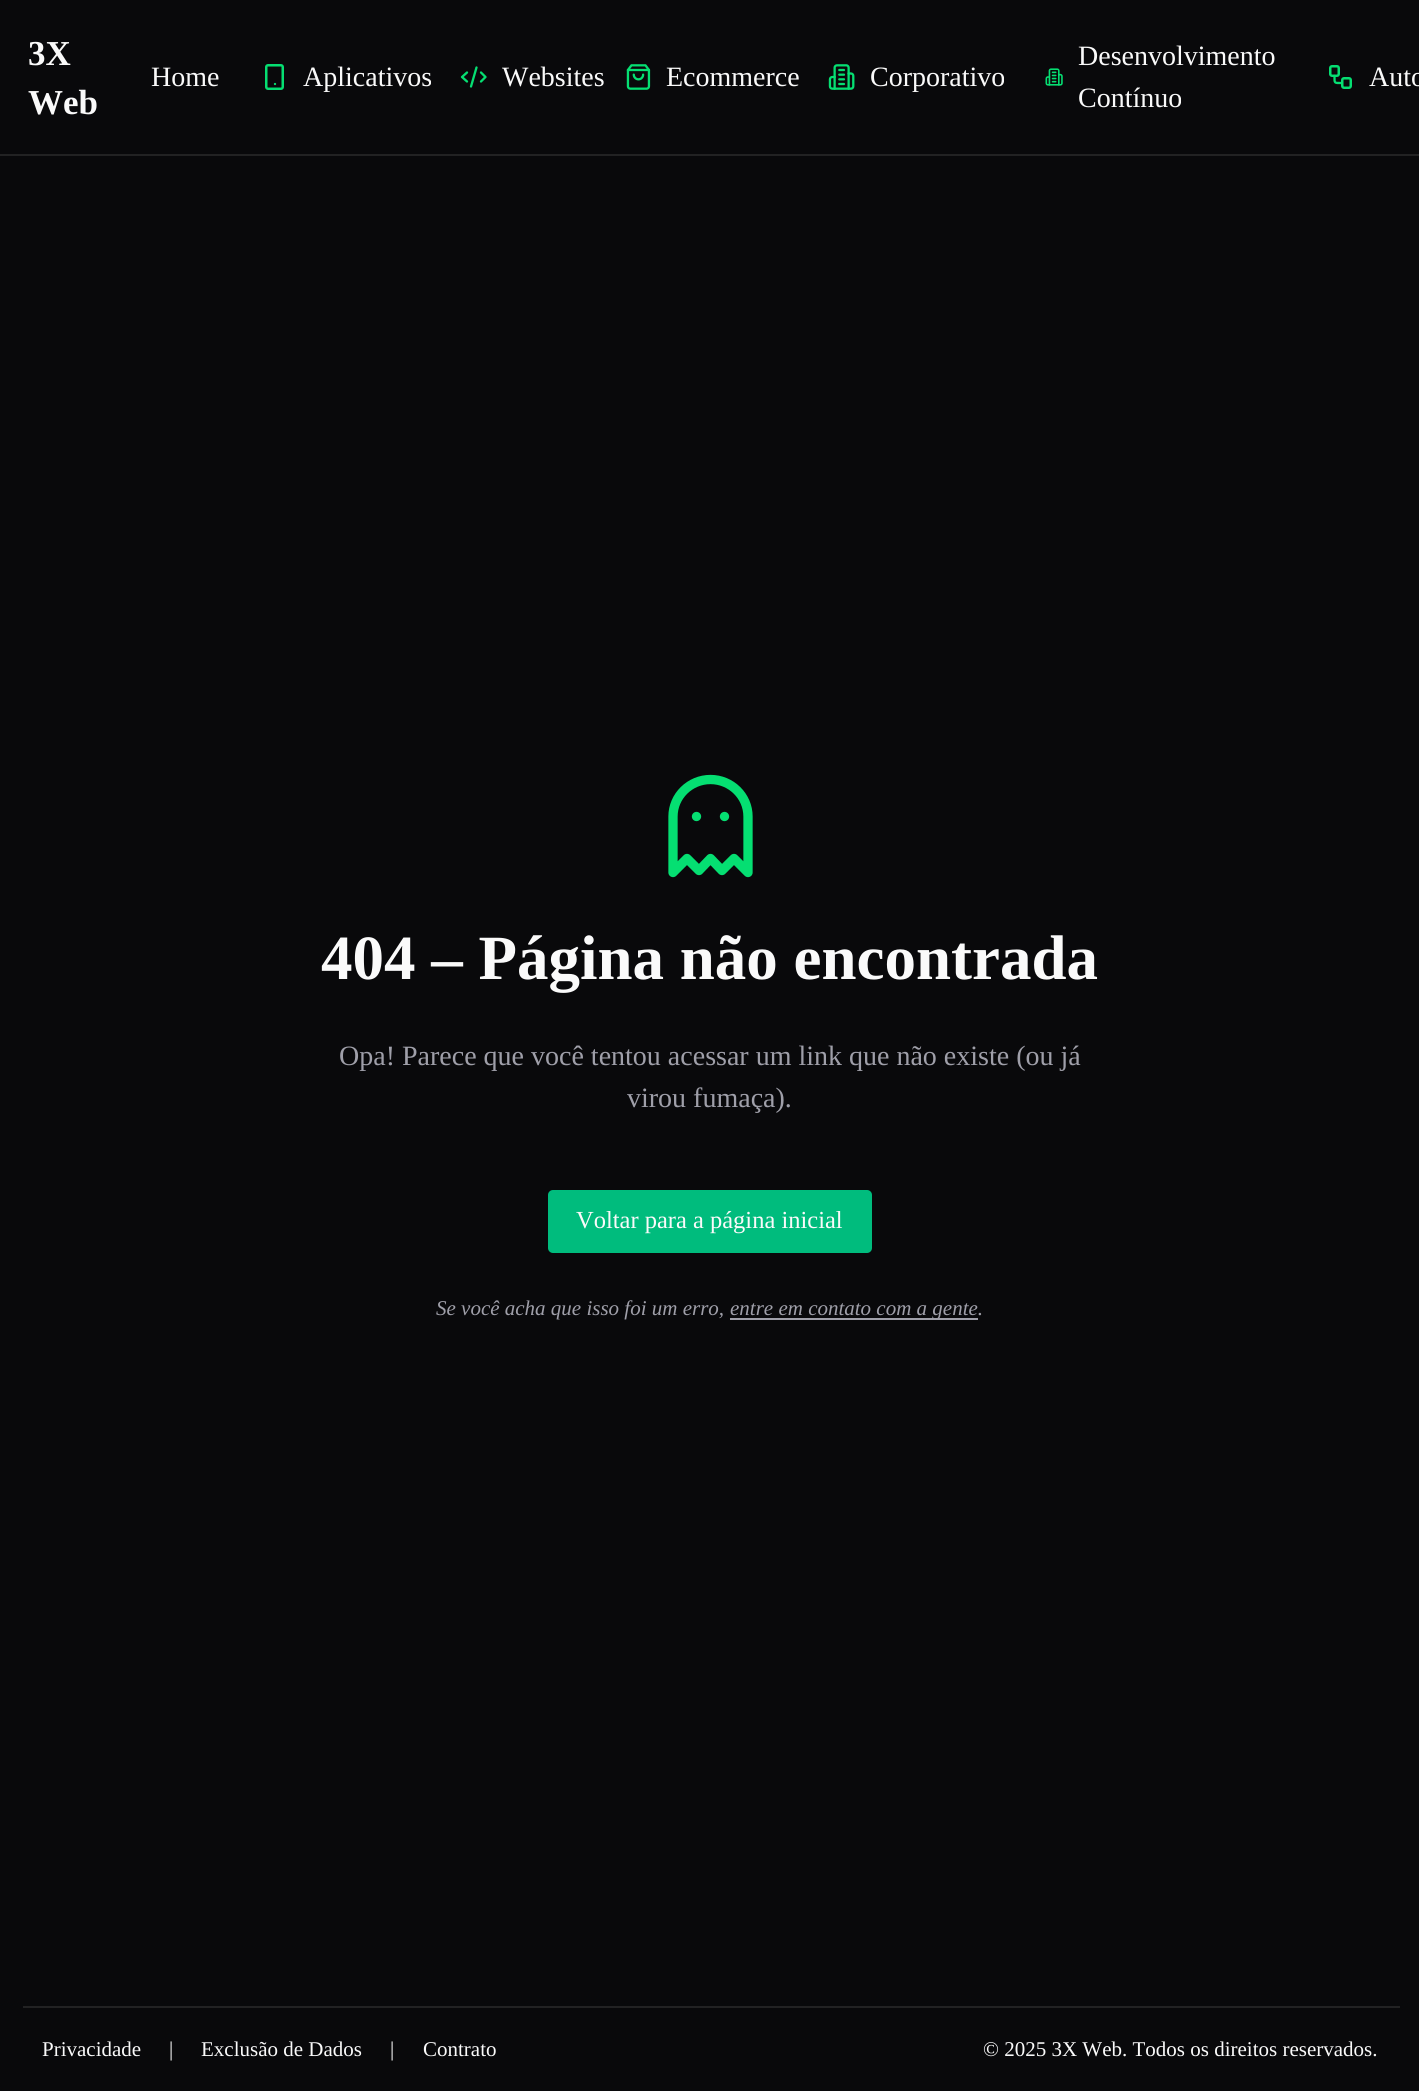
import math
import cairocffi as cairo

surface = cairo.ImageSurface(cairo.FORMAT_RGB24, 1419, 2091)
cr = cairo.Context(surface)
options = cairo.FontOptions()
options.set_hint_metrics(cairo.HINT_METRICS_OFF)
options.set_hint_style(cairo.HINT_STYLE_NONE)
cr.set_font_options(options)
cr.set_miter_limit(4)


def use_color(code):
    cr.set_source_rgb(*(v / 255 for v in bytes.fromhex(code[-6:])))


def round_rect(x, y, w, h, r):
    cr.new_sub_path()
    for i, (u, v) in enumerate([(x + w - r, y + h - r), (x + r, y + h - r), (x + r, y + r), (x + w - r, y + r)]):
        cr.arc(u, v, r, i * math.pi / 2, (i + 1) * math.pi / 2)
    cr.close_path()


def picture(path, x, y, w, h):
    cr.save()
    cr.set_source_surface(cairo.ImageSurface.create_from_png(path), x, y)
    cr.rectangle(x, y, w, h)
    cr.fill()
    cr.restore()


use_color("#09090b")
cr.paint()
use_color("#222223")
cr.rectangle(0, 154, 1419, 2)
cr.fill()
cr.select_font_face("Liberation Serif", cairo.FONT_SLANT_NORMAL, cairo.FONT_WEIGHT_BOLD)
cr.set_font_size(35)
use_color("#fafafa")
cr.move_to(28, 65)
cr.show_text("3X")
cr.move_to(28, 114)
cr.show_text("Web")
cr.select_font_face("Liberation Serif")
cr.set_font_size(28)
cr.move_to(151, 86)
cr.show_text("Home")
round_rect(266.25, 65.25, 16.5, 23.5, 1.75)
use_color("#05df72")
cr.set_line_width(2.5)
cr.stroke()
cr.new_path()
cr.move_to(275, 84)
cr.line_to(275, 84)
cr.set_line_width(2.3)
cr.set_line_cap(cairo.LINE_CAP_ROUND)
cr.set_line_join(cairo.LINE_JOIN_ROUND)
cr.stroke()
use_color("#fafafa")
cr.move_to(303, 86)
cr.show_text("Aplicativos")
cr.new_path()
cr.move_to(481, 81.5)
cr.line_to(485.5, 77)
cr.line_to(481, 72.5)
cr.move_to(467, 72.5)
cr.line_to(462, 77)
cr.line_to(467, 81.5)
cr.move_to(476.5, 67.5)
cr.line_to(471, 86.5)
use_color("#05df72")
cr.stroke()
use_color("#fafafa")
cr.move_to(502, 86)
cr.show_text("Websites")
picture("img1.png", 626, 64, 25, 26)
cr.move_to(666, 86)
cr.show_text("Ecommerce")
picture("img2.png", 828, 64, 27, 26)
cr.move_to(870, 86)
cr.show_text("Corporativo")
cr.move_to(1078, 65)
cr.show_text("Desenvolvimento")
picture("img3.png", 1045, 68, 18, 18)
cr.move_to(1078, 107)
cr.show_text("Contínuo")
round_rect(1330.25, 66.25, 8.5, 9.5, 1.75)
use_color("#05df72")
cr.set_line_width(2.5)
cr.set_line_cap(cairo.LINE_CAP_BUTT)
cr.set_line_join(cairo.LINE_JOIN_MITER)
cr.stroke()
cr.new_path()
cr.move_to(1334.5, 76)
cr.curve_to(1334.5, 83.5, 1334, 83, 1341.5, 83)
cr.set_line_width(2.3)
cr.set_line_cap(cairo.LINE_CAP_ROUND)
cr.set_line_join(cairo.LINE_JOIN_ROUND)
cr.stroke()
round_rect(1342.25, 78.25, 8.5, 9.5, 1.75)
cr.set_line_width(2.5)
cr.set_line_cap(cairo.LINE_CAP_BUTT)
cr.set_line_join(cairo.LINE_JOIN_MITER)
cr.stroke()
use_color("#fafafa")
cr.move_to(1369, 86)
cr.show_text("Auto")
cr.new_path()
cr.move_to(696.5, 816.5)
cr.line_to(696.5, 816.5)
cr.move_to(724.5, 816.5)
cr.line_to(724.5, 816.5)
use_color("#05df72")
cr.set_line_width(9.3)
cr.set_line_cap(cairo.LINE_CAP_ROUND)
cr.set_line_join(cairo.LINE_JOIN_ROUND)
cr.stroke()
cr.new_path()
cr.move_to(710.5, 779.5)
cr.curve_to(690, 779.5, 673, 796, 673, 816.5)
cr.line_to(673, 872.5)
cr.line_to(687, 858.5)
cr.line_to(699, 870.5)
cr.line_to(710.5, 858.5)
cr.line_to(722, 870.5)
cr.line_to(734, 858.5)
cr.line_to(748, 872.5)
cr.line_to(748, 816.5)
cr.curve_to(748, 796, 731, 779.5, 710.5, 779.5)
cr.close_path()
cr.stroke()
cr.select_font_face("Liberation Serif", cairo.FONT_SLANT_NORMAL, cairo.FONT_WEIGHT_BOLD)
cr.set_font_size(63)
use_color("#fafafa")
cr.move_to(321, 979)
cr.show_text("404 – Página não encontrada")
cr.select_font_face("Liberation Serif")
cr.set_font_size(28)
use_color("#9f9fa9")
cr.move_to(339, 1065)
cr.show_text("Opa! Parece que você tentou acessar um link que não existe (ou já")
cr.move_to(627, 1107)
cr.show_text("virou fumaça).")
use_color("#00bc7d")
round_rect(548, 1190, 324, 63, 5)
cr.fill()
cr.set_font_size(24.5)
use_color("#fafafa")
cr.move_to(576, 1228)
cr.show_text("Voltar para a página inicial")
cr.select_font_face("Liberation Serif", cairo.FONT_SLANT_ITALIC)
cr.set_font_size(21)
use_color("#9f9fa9")
cr.move_to(436, 1315)
cr.show_text("Se você acha que isso foi um erro,")
cr.rectangle(730, 1318, 248, 2)
cr.fill()
cr.move_to(730, 1315)
cr.show_text("entre em contato com a gente.")
use_color("#222223")
cr.rectangle(23, 2006, 1377, 2)
cr.fill()
cr.select_font_face("Liberation Serif")
use_color("#fafafa")
cr.move_to(42, 2056)
cr.show_text("Privacidade")
cr.move_to(169, 2056)
cr.show_text("|")
cr.move_to(201, 2056)
cr.show_text("Exclusão de Dados")
cr.move_to(390, 2056)
cr.show_text("|")
cr.move_to(423, 2056)
cr.show_text("Contrato")
cr.move_to(983, 2056)
cr.show_text("© 2025 3X Web. Todos os direitos reservados.")
surface.write_to_png("result.png")
